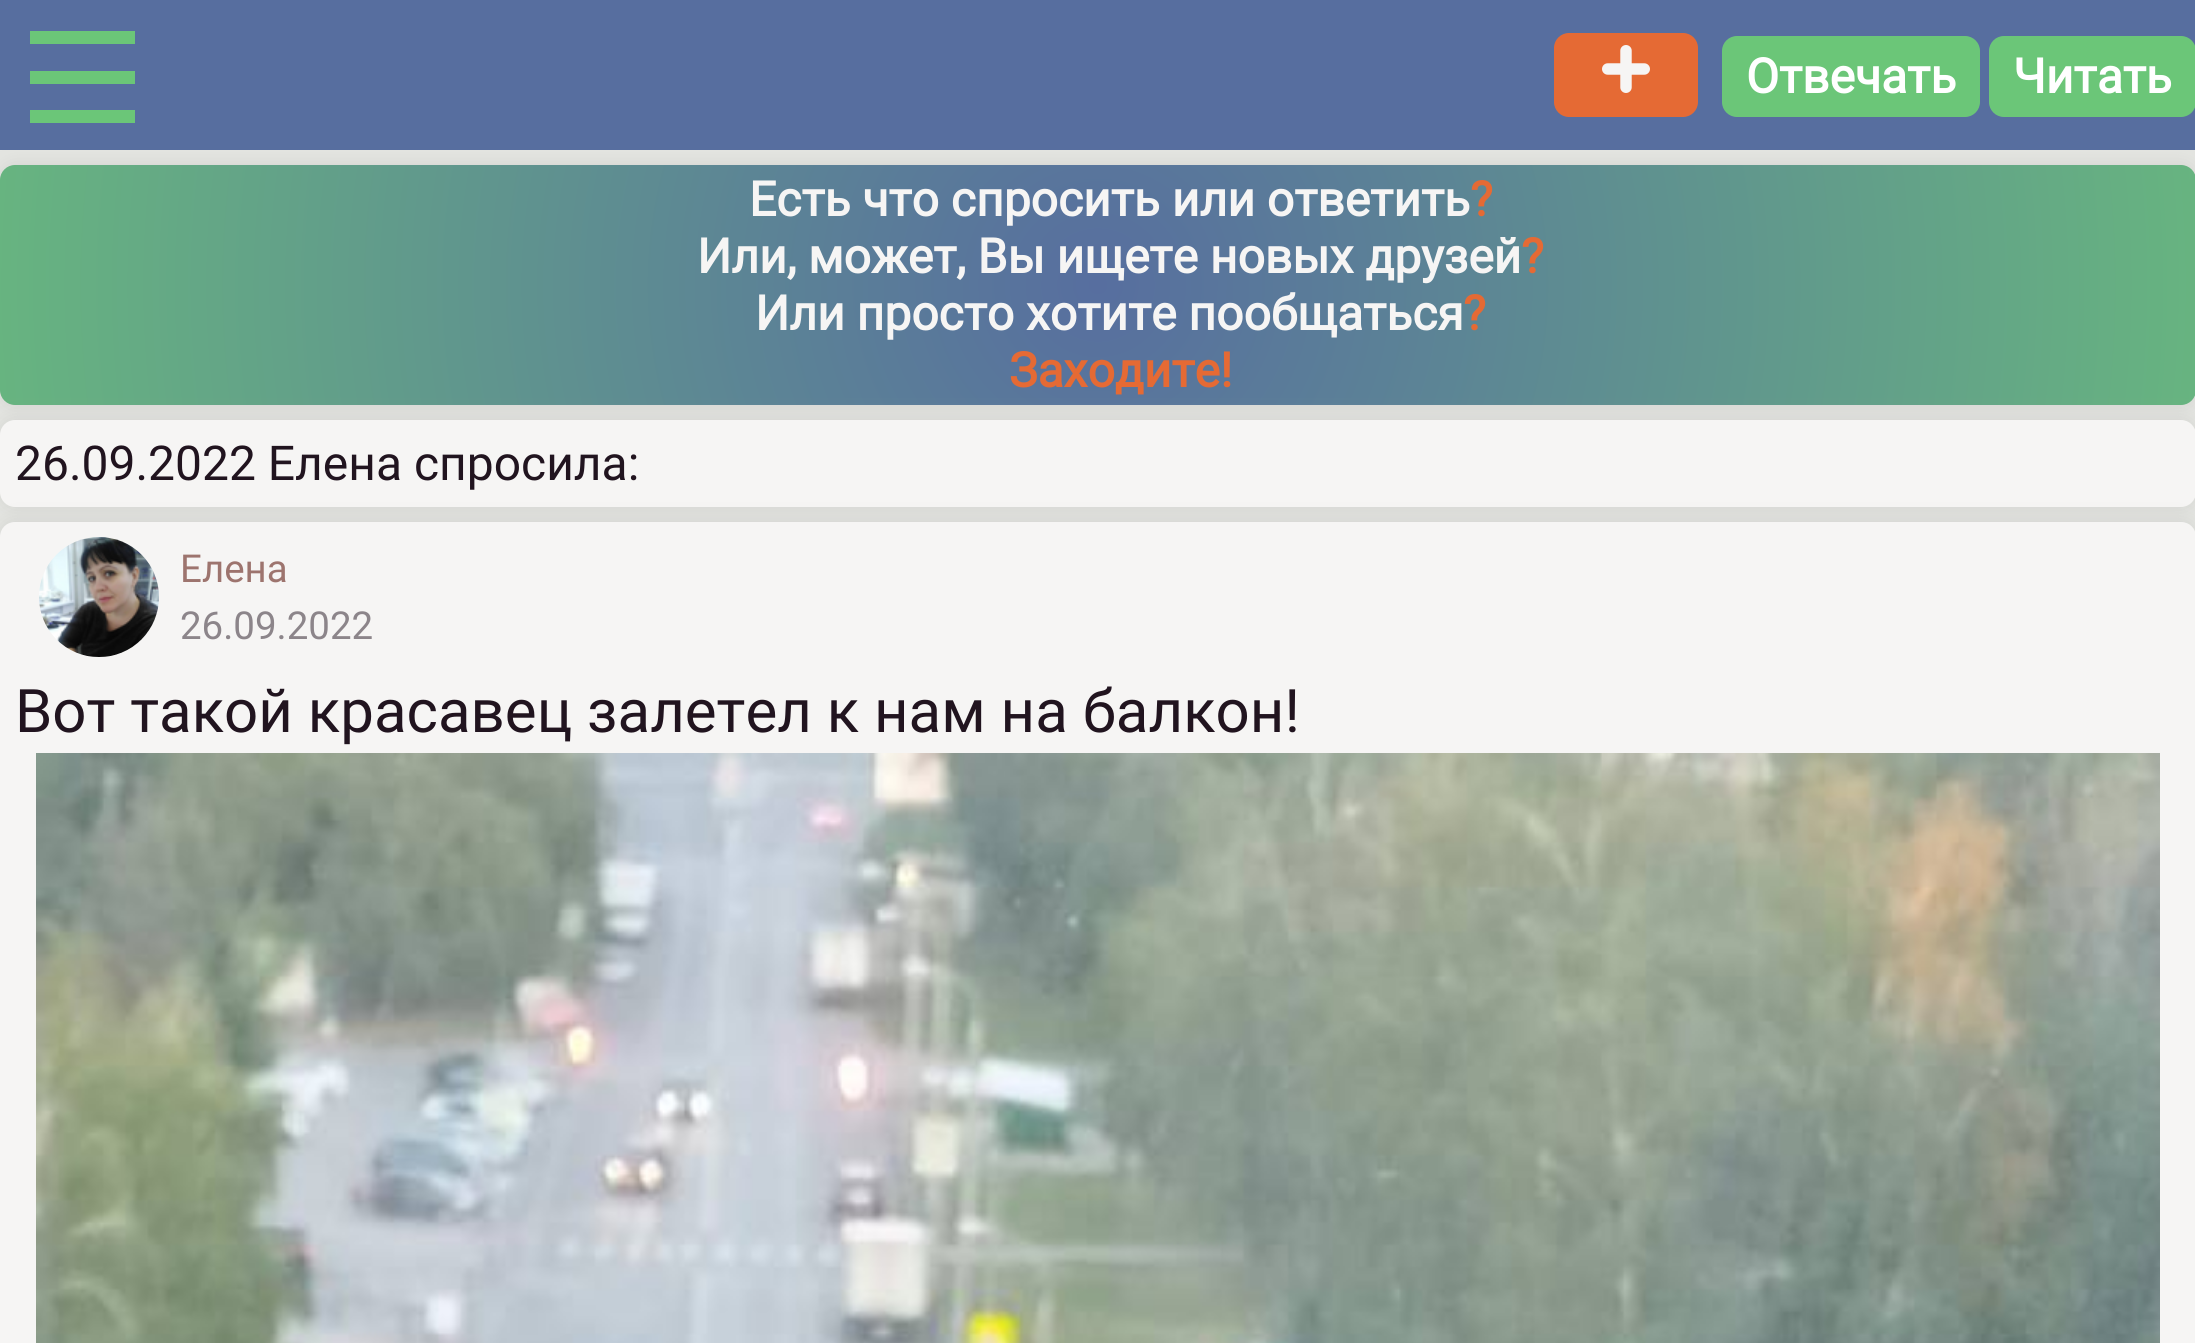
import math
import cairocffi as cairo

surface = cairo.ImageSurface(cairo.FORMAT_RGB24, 2195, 1343)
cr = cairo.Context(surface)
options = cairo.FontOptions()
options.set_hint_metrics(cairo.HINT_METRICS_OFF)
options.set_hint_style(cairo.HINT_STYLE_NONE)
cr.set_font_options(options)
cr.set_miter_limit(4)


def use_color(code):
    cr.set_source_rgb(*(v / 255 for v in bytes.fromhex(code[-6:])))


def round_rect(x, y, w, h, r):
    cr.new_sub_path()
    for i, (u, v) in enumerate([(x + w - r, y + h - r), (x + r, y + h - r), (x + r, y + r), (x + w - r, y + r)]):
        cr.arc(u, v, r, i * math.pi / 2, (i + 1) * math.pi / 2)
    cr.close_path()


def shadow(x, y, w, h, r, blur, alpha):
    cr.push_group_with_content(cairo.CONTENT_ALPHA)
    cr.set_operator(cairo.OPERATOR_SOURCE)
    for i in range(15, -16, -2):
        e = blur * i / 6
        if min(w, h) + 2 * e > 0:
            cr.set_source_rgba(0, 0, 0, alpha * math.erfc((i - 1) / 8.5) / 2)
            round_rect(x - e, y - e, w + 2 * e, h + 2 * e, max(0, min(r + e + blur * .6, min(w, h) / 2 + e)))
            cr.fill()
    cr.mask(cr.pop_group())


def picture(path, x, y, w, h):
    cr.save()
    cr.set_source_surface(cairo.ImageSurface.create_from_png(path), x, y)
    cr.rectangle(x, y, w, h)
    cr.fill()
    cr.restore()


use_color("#e4e5e1")
cr.paint()
use_color("#b2b2b2")
shadow(0, 165, 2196, 240, 15, 9, 0.4)
use_color("#576e9f")
cr.rectangle(0, 0, 2195, 150)
cr.fill()
use_color("#6bc678")
cr.rectangle(30, 31, 105, 13)
cr.fill()
cr.rectangle(30, 71, 105, 13)
cr.fill()
cr.rectangle(30, 110, 105, 13)
cr.fill()
use_color("#e56a34")
round_rect(1554, 33, 144, 84, 15)
cr.fill()
picture("img1.png", 1602, 45, 48, 48)
use_color("#6bc678")
round_rect(1722, 36, 258, 81, 15)
cr.fill()
cr.select_font_face("Roboto", cairo.FONT_SLANT_NORMAL, cairo.FONT_WEIGHT_BOLD)
cr.set_font_size(48)
use_color("#ffffff")
cr.move_to(1746, 93)
cr.show_text("Отвечать")
use_color("#6bc678")
round_rect(1989, 36, 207, 81, 15)
cr.fill()
use_color("#ffffff")
cr.move_to(2013, 93)
cr.show_text("Читать")
gradient = cairo.RadialGradient(1098, 285, 0, 1098, 285, 1105)
gradient.add_color_stop_rgba(0, 0.341, 0.431, 0.624, 1)
gradient.add_color_stop_rgba(1, 0.404, 0.706, 0.502, 1)
cr.set_source(gradient)
round_rect(0, 165, 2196, 240, 15)
cr.fill()
use_color("#f6f5f4")
cr.move_to(749, 216)
cr.show_text("Есть что спросить или ответить")
use_color("#e56a34")
cr.move_to(1470, 216)
cr.show_text("?")
use_color("#f6f5f4")
cr.move_to(697, 273)
cr.show_text("Или, может, Вы ищете новых друзей")
use_color("#e56a34")
cr.move_to(1521, 273)
cr.show_text("?")
use_color("#f6f5f4")
cr.move_to(755, 330)
cr.show_text("Или просто хотите пообщаться")
use_color("#e56a34")
cr.move_to(1463, 330)
cr.show_text("?")
use_color("#b2b2b2")
shadow(0, 420, 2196, 87, 15, 9, 0.4)
use_color("#e56a34")
cr.move_to(1009, 387)
cr.show_text("Заходите!")
use_color("#f6f5f4")
round_rect(0, 420, 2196, 87, 15)
cr.fill()
cr.select_font_face("Roboto")
use_color("#21141f")
cr.move_to(15, 480)
cr.show_text("26.09.2022 Елена спросила:")
use_color("#b2b2b2")
shadow(0, 522, 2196, 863, 15, 9, 0.4)
use_color("#f6f5f4")
cr.new_path()
cr.move_to(15, 522)
cr.line_to(2181, 522)
cr.curve_to(2189.5, 522, 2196, 528.5, 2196, 537)
cr.line_to(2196, 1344)
cr.line_to(0, 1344)
cr.line_to(0, 537)
cr.curve_to(0, 528.5, 6.5, 522, 15, 522)
cr.close_path()
cr.fill()
picture("img2.png", 39, 537, 120, 120)
cr.set_font_size(38.5)
use_color("#9d746e")
cr.move_to(180, 582)
cr.show_text("Елена")
use_color("#8c858a")
cr.move_to(180, 639)
cr.show_text("26.09.2022")
cr.set_font_size(60)
use_color("#21141f")
cr.move_to(15, 732)
cr.show_text("Вот такой красавец залетел к нам на балкон!")
picture("img3.png", 36, 753, 2124, 590)
surface.write_to_png("result.png")
